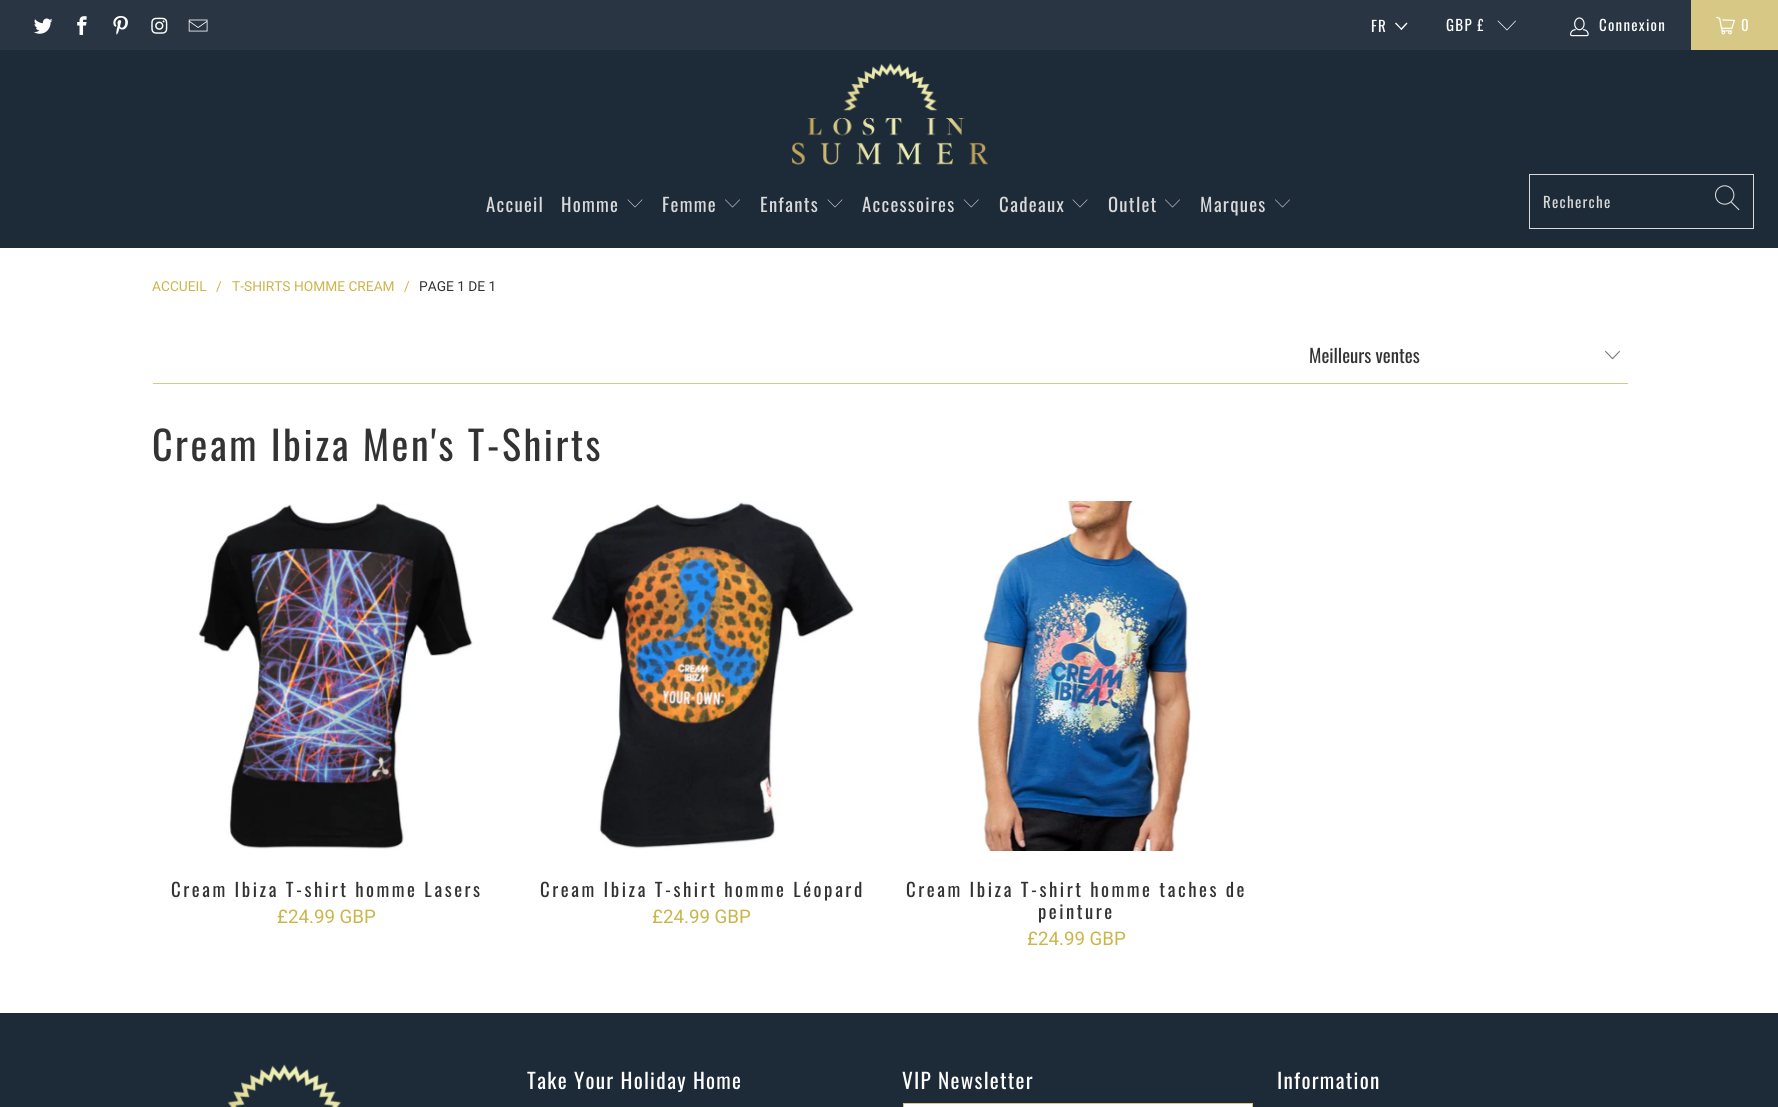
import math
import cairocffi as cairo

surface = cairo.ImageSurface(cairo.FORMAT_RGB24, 1778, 1107)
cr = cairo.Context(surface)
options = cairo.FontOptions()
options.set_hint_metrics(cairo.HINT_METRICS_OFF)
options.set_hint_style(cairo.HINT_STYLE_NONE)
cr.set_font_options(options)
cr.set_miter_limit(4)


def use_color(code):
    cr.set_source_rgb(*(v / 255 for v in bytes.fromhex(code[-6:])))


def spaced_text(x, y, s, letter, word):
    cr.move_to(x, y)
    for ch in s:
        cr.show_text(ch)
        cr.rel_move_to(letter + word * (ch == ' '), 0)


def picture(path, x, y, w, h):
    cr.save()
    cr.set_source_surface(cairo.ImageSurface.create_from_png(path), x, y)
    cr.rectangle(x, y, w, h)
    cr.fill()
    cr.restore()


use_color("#ffffff")
cr.paint()
use_color("#293543")
cr.rectangle(0, 0, 1691, 50)
cr.fill()
picture("img1.png", 34, 18, 19, 16)
picture("img2.png", 77, 16, 10, 19)
picture("img3.png", 113, 15, 15, 20)
picture("img4.png", 151, 17, 17, 17)
picture("img5.png", 188, 19, 20, 13)
cr.select_font_face("Oswald")
cr.set_font_size(15)
use_color("#ffffff")
spaced_text(1371, 32, "FR", 1.25, 0)
cr.new_path()
cr.move_to(1406.5, 22.5)
cr.line_to(1407.5, 23.5)
cr.line_to(1401.5, 30)
cr.line_to(1400.5, 29)
cr.close_path()
cr.fill()
cr.new_path()
cr.move_to(1396, 22.5)
cr.line_to(1402, 29)
cr.line_to(1401.5, 30)
cr.line_to(1395, 23.5)
cr.close_path()
cr.fill()
spaced_text(1446, 31, "GBP £", 1.25, 0)
cr.new_path()
cr.move_to(1507, 30.5)
cr.line_to(1497.5, 21)
cr.line_to(1498, 20.5)
cr.line_to(1507, 29.5)
cr.line_to(1515.5, 20.5)
cr.line_to(1516, 21)
cr.close_path()
cr.fill()
picture("img6.png", 1570, 17, 19, 20)
spaced_text(1599, 31, "Connexion", 1.25, 0)
use_color("#d7c985")
cr.rectangle(1691, 0, 87, 50)
cr.fill()
picture("img7.png", 1716, 16, 19, 19)
use_color("#ffffff")
spaced_text(1741, 31, "0", 1.25, 0)
use_color("#1d2a38")
cr.rectangle(0, 50, 1778, 198)
cr.fill()
picture("img8.png", 791, 63, 197, 102)
cr.set_font_size(18.75)
use_color("#d9d9d9")
spaced_text(486, 212, "Accueil", 1.25, 0)
spaced_text(561, 212, "Homme", 1.25, 0)
picture("img9.png", 627, 199, 16, 9)
spaced_text(662, 212, "Femme", 1.25, 0)
picture("img10.png", 725, 199, 15, 9)
spaced_text(760, 212, "Enfants", 1.25, 0)
picture("img9.png", 827, 199, 16, 9)
spaced_text(862, 212, "Accessoires", 1.25, 0)
picture("img11.png", 963, 199, 16, 9)
spaced_text(999, 212, "Cadeaux", 1.25, 0)
picture("img9.png", 1072, 199, 16, 9)
spaced_text(1108, 212, "Outlet", 1.25, 0)
picture("img10.png", 1165, 199, 15, 9)
spaced_text(1200, 212, "Marques", 1.25, 0)
picture("img10.png", 1275, 199, 15, 9)
cr.rectangle(1529.5, 174.5, 224, 54)
cr.set_line_width(1)
cr.stroke()
cr.set_font_size(15)
spaced_text(1543, 208, "Recherche", 1.25, 0)
picture("img12.png", 1715, 185, 25, 26)
cr.select_font_face("Roboto")
cr.set_font_size(13.75)
use_color("#cbb54b")
cr.move_to(152, 291)
cr.show_text("ACCUEIL")
cr.move_to(216, 291)
cr.show_text("/")
cr.move_to(232, 291)
cr.show_text("T-SHIRTS HOMME CREAM")
cr.move_to(404, 291)
cr.show_text("/")
use_color("#333333")
cr.move_to(419, 291)
cr.show_text("PAGE 1 DE 1")
picture("img13.png", 1605, 350, 15, 10)
cr.select_font_face("Oswald")
cr.set_font_size(18.75)
cr.move_to(1309, 363)
cr.show_text("Meilleurs ventes")
use_color("#d7c985")
cr.rectangle(153, 383, 1475, 1)
cr.fill()
cr.set_font_size(40)
use_color("#333333")
spaced_text(152, 461, "Cream Ibiza Men's T-Shirts", 2.5, 0)
picture("img14.png", 198, 503, 275, 346)
cr.set_font_size(18.75)
spaced_text(171, 897, "Cream Ibiza T-shirt homme Lasers", 2.5, 0)
cr.select_font_face("Roboto")
use_color("#cbb54b")
cr.move_to(277, 923)
cr.show_text("£24.99 GBP")
picture("img15.png", 551, 501, 303, 348)
cr.select_font_face("Oswald")
use_color("#333333")
spaced_text(540, 897, "Cream Ibiza T-shirt homme Léopard", 2.5, 0)
cr.select_font_face("Roboto")
use_color("#cbb54b")
cr.move_to(652, 923)
cr.show_text("£24.99 GBP")
picture("img16.png", 977, 501, 214, 350)
cr.select_font_face("Oswald")
use_color("#333333")
spaced_text(906, 897, "Cream Ibiza T-shirt homme taches de", 2.5, 0)
spaced_text(1038, 919, "peinture", 2.5, 0)
cr.select_font_face("Roboto")
use_color("#cbb54b")
cr.move_to(1027, 945)
cr.show_text("£24.99 GBP")
use_color("#1d2a38")
cr.rectangle(0, 1013, 1778, 94)
cr.fill()
picture("img17.png", 227, 1064, 115, 43)
cr.select_font_face("Oswald")
cr.set_font_size(21.25)
use_color("#ffffff")
spaced_text(527, 1089, "Take Your Holiday Home", 1.25, 0)
spaced_text(902, 1089, "VIP Newsletter", 1.25, 0)
cr.rectangle(903.5, 1103.5, 349, 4)
cr.fill_preserve()
use_color("#d7c985")
cr.stroke()
use_color("#ffffff")
spaced_text(1277, 1089, "Information", 1.25, 0)
surface.write_to_png("result.png")
